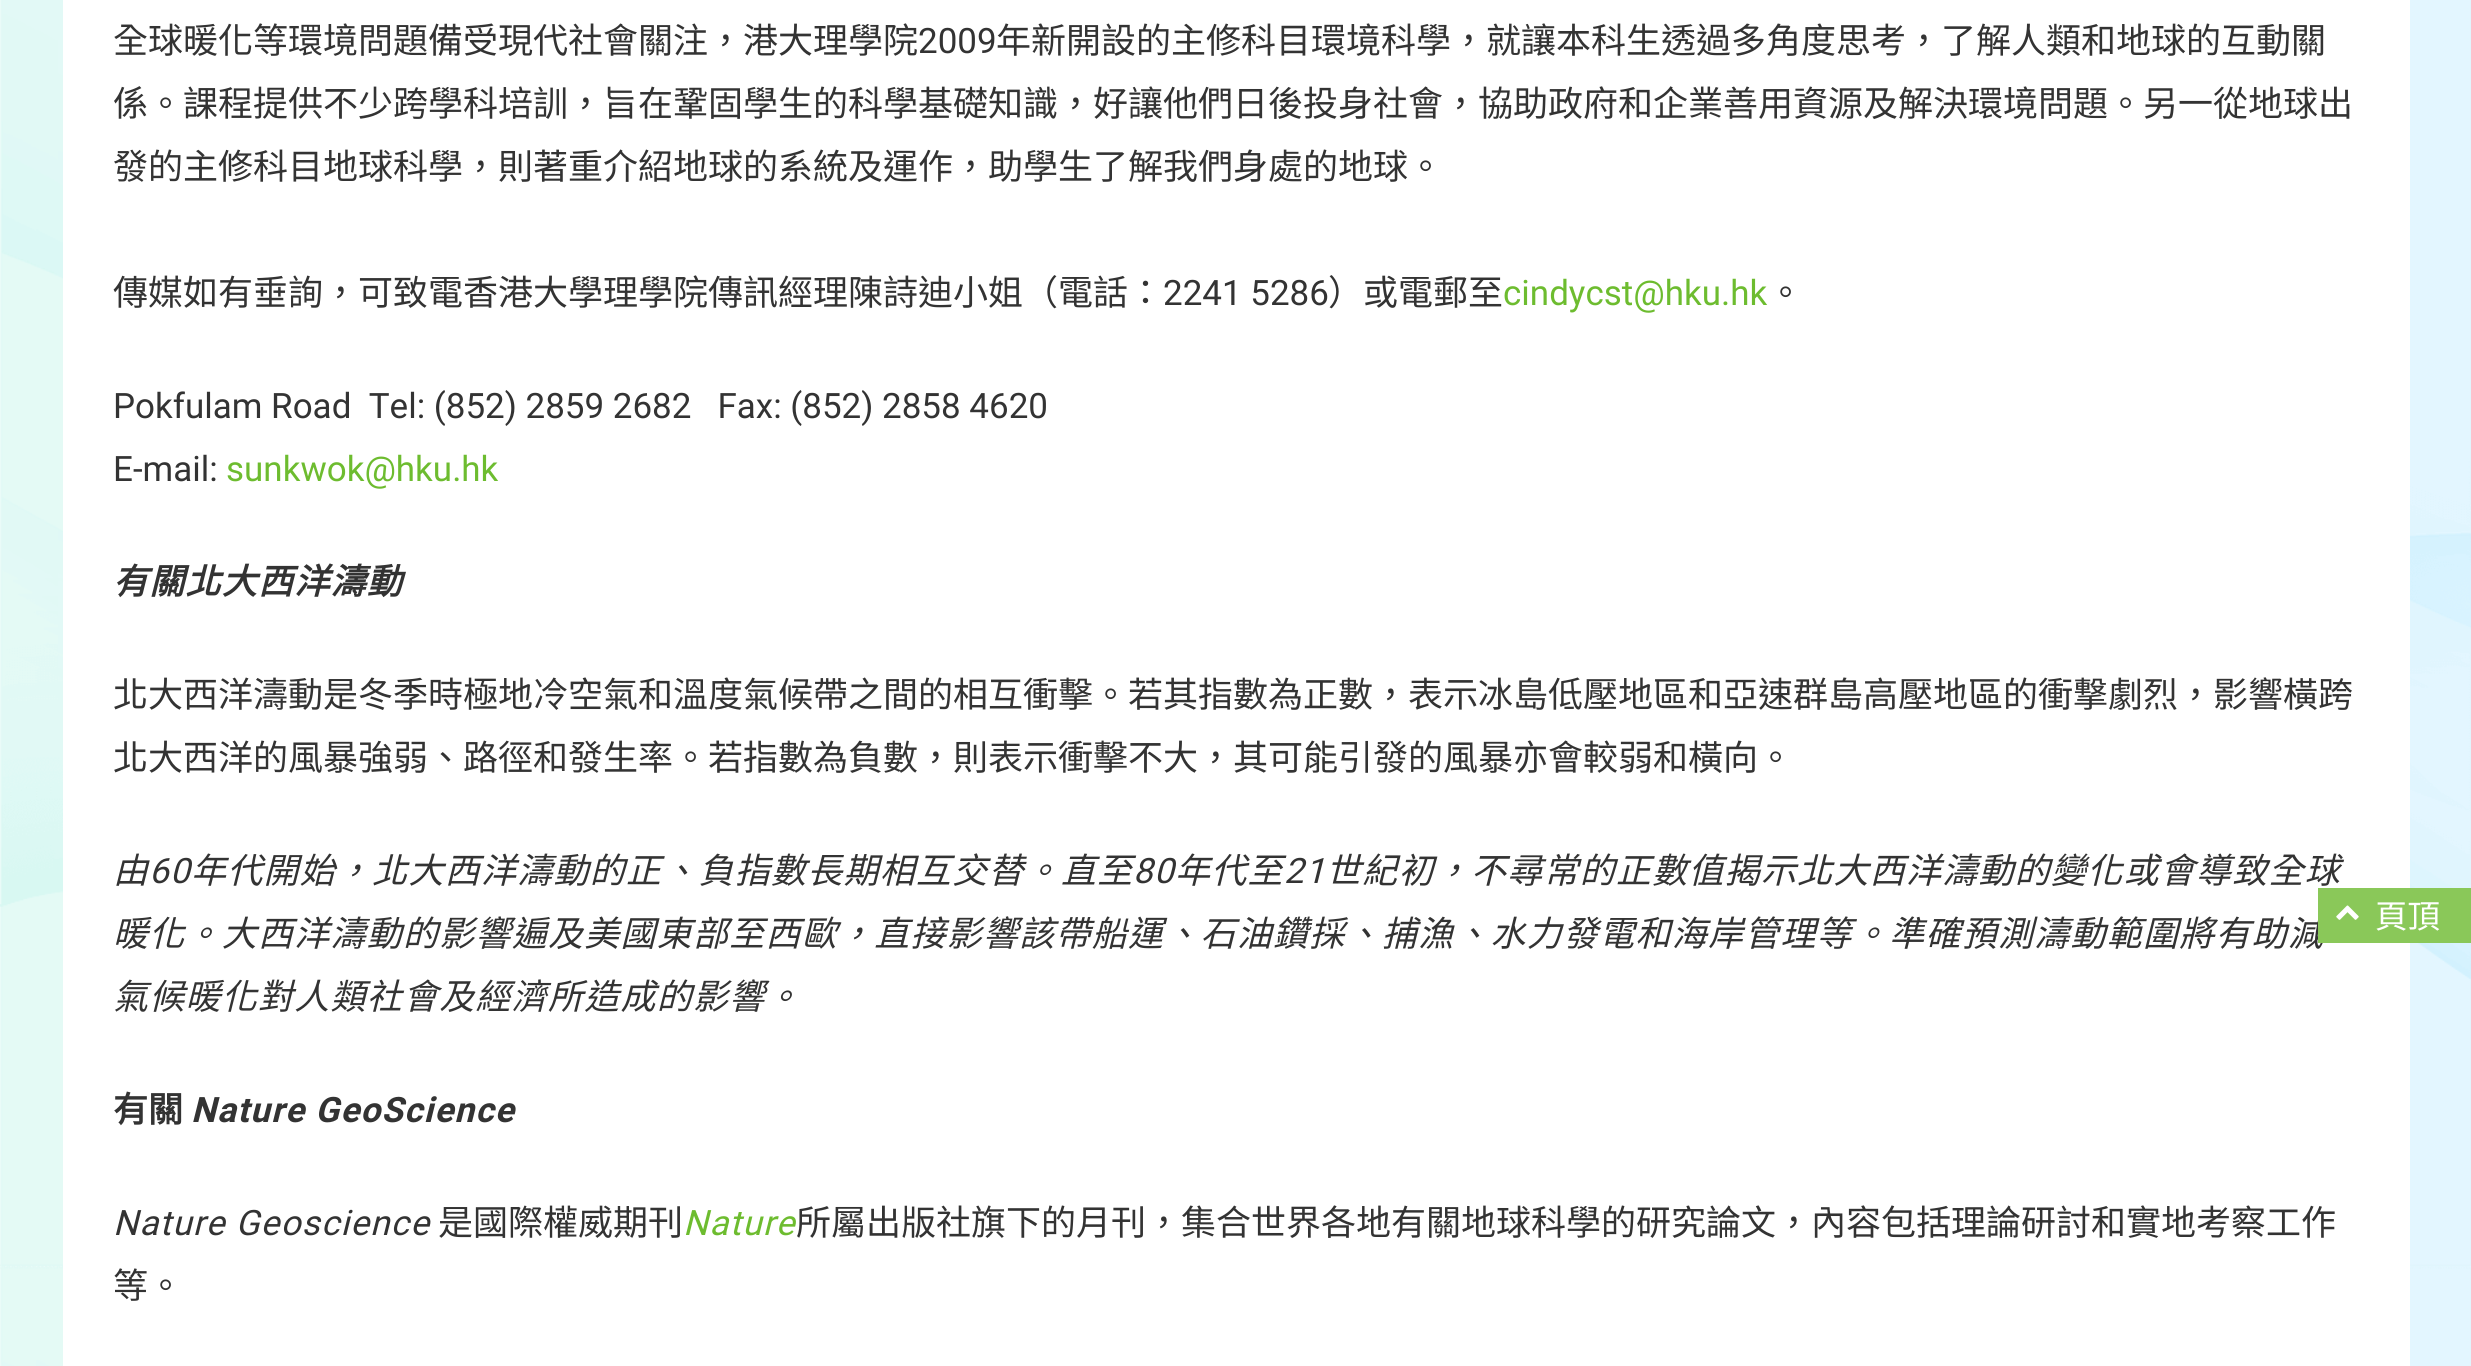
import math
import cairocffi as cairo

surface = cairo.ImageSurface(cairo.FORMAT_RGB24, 2471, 1366)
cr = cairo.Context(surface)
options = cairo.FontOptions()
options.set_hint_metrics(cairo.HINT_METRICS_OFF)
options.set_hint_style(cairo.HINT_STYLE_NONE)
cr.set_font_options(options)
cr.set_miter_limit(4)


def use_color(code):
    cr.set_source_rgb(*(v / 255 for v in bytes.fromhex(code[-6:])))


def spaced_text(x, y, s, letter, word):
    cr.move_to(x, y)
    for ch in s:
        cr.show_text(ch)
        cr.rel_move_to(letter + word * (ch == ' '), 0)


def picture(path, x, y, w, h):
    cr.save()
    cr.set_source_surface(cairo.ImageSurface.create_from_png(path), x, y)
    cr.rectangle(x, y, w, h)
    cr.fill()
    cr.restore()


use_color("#ffffff")
cr.paint()
picture("img1.png", 0, 0, 2471, 1366)
use_color("#ffffff")
cr.rectangle(63, 0, 2347, 1366)
cr.fill()
cr.select_font_face("Noto Sans CJK TC")
cr.set_font_size(35)
use_color("#333333")
cr.move_to(113, 53)
cr.show_text("全球暖化等環境問題備受現代社會關注，港大理學院")
cr.select_font_face("Roboto")
cr.move_to(918, 53)
cr.show_text("2009")
cr.select_font_face("Noto Sans CJK TC")
cr.move_to(996, 53)
cr.show_text("年新開設的主修科目環境科學，就讓本科生透過多角度思考，了解人類和地球的互動關")
cr.move_to(113, 116)
cr.show_text("係。課程提供不少跨學科培訓，旨在鞏固學生的科學基礎知識，好讓他們日後投身社會，協助政府和企業善用資源及解決環境問題。另一從地球出")
cr.move_to(113, 179)
cr.show_text("發的主修科目地球科學，則著重介紹地球的系統及運作，助學生了解我們身處的地球。")
cr.move_to(113, 305)
cr.show_text("傳媒如有垂詢，可致電香港大學理學院傳訊經理陳詩迪小姐（電話：")
cr.select_font_face("Roboto")
cr.move_to(1163, 305)
cr.show_text("2241 5286")
cr.select_font_face("Noto Sans CJK TC")
cr.move_to(1328, 305)
cr.show_text("）或電郵至")
cr.select_font_face("Roboto")
use_color("#6dbc2f")
cr.move_to(1503, 305)
cr.show_text("cindycst@hku.hk")
cr.select_font_face("Noto Sans CJK TC")
use_color("#333333")
cr.move_to(1768, 305)
cr.show_text("。")
cr.select_font_face("Roboto")
cr.move_to(113, 418)
cr.show_text("Pokfulam Road  Tel: (852) 2859 2682   Fax: (852) 2858 4620")
cr.move_to(113, 481)
cr.show_text("E-mail:")
use_color("#6dbc2f")
cr.move_to(226, 481)
cr.show_text("sunkwok@hku.hk")
cr.select_font_face("Noto Sans CJK TC", cairo.FONT_SLANT_ITALIC, cairo.FONT_WEIGHT_BOLD)
use_color("#333333")
spaced_text(113, 594, "有關北大西洋濤動", 1.25, 0)
cr.select_font_face("Noto Sans CJK TC")
cr.move_to(113, 707)
cr.show_text("北大西洋濤動是冬季時極地冷空氣和溫度氣候帶之間的相互衝擊。若其指數為正數，表示冰島低壓地區和亞速群島高壓地區的衝撃劇烈，影響橫跨")
cr.move_to(113, 770)
cr.show_text("北大西洋的風暴強弱、路徑和發生率。若指數為負數，則表示衝擊不大，其可能引發的風暴亦會較弱和橫向。")
cr.select_font_face("Noto Sans CJK TC", cairo.FONT_SLANT_ITALIC)
spaced_text(113, 883, "由", 1.25, 0)
cr.select_font_face("Roboto", cairo.FONT_SLANT_ITALIC)
spaced_text(149, 883, "60", 1.25, 0)
cr.select_font_face("Noto Sans CJK TC", cairo.FONT_SLANT_ITALIC)
spaced_text(191, 883, "年代開始，北大西洋濤動的正、負指數長期相互交替。直至", 1.25, 0)
cr.select_font_face("Roboto", cairo.FONT_SLANT_ITALIC)
spaced_text(1133, 883, "80", 1.25, 0)
cr.select_font_face("Noto Sans CJK TC", cairo.FONT_SLANT_ITALIC)
spaced_text(1175, 883, "年代至", 1.25, 0)
cr.select_font_face("Roboto", cairo.FONT_SLANT_ITALIC)
spaced_text(1284, 883, "21", 1.25, 0)
cr.select_font_face("Noto Sans CJK TC", cairo.FONT_SLANT_ITALIC)
spaced_text(1326, 883, "世紀初，不尋常的正數值揭示北大西洋濤動的變化或會導致全球", 1.25, 0)
spaced_text(113, 946, "暖化。大西洋濤動的影響遍及美國東部至西歐，直接影響該帶船運、石油鑽採、捕漁、水力發電和海岸管理等。準確預測濤動範圍將有助減", 1.25, 0)
spaced_text(113, 1009, "氣候暖化對人類社會及經濟所造成的影響。", 1.25, 0)
cr.select_font_face("Noto Sans CJK TC", cairo.FONT_SLANT_NORMAL, cairo.FONT_WEIGHT_BOLD)
cr.move_to(113, 1122)
cr.show_text("有關")
cr.select_font_face("Roboto", cairo.FONT_SLANT_ITALIC, cairo.FONT_WEIGHT_BOLD)
spaced_text(191, 1122, "Nature GeoScience", 1.25, 0)
cr.select_font_face("Roboto", cairo.FONT_SLANT_ITALIC)
spaced_text(113, 1235, "Nature Geoscience", 1.25, 0)
cr.select_font_face("Noto Sans CJK TC")
cr.move_to(438, 1235)
cr.show_text("是國際權威期刊")
cr.select_font_face("Roboto", cairo.FONT_SLANT_ITALIC)
use_color("#6dbc2f")
spaced_text(683, 1235, "Nature", 1.25, 0)
cr.select_font_face("Noto Sans CJK TC")
use_color("#333333")
cr.move_to(796, 1235)
cr.show_text("所屬出版社旗下的月刊，集合世界各地有關地球科學的研究論文，內容包括理論研討和實地考察工作")
cr.move_to(113, 1298)
cr.show_text("等。")
use_color("#8ac859")
cr.rectangle(2318, 888, 153, 55)
cr.fill()
picture("img2.png", 2336, 905, 23, 15)
cr.set_font_size(32.5)
use_color("#ffffff")
cr.move_to(2375, 928)
cr.show_text("頁頂")
surface.write_to_png("result.png")
